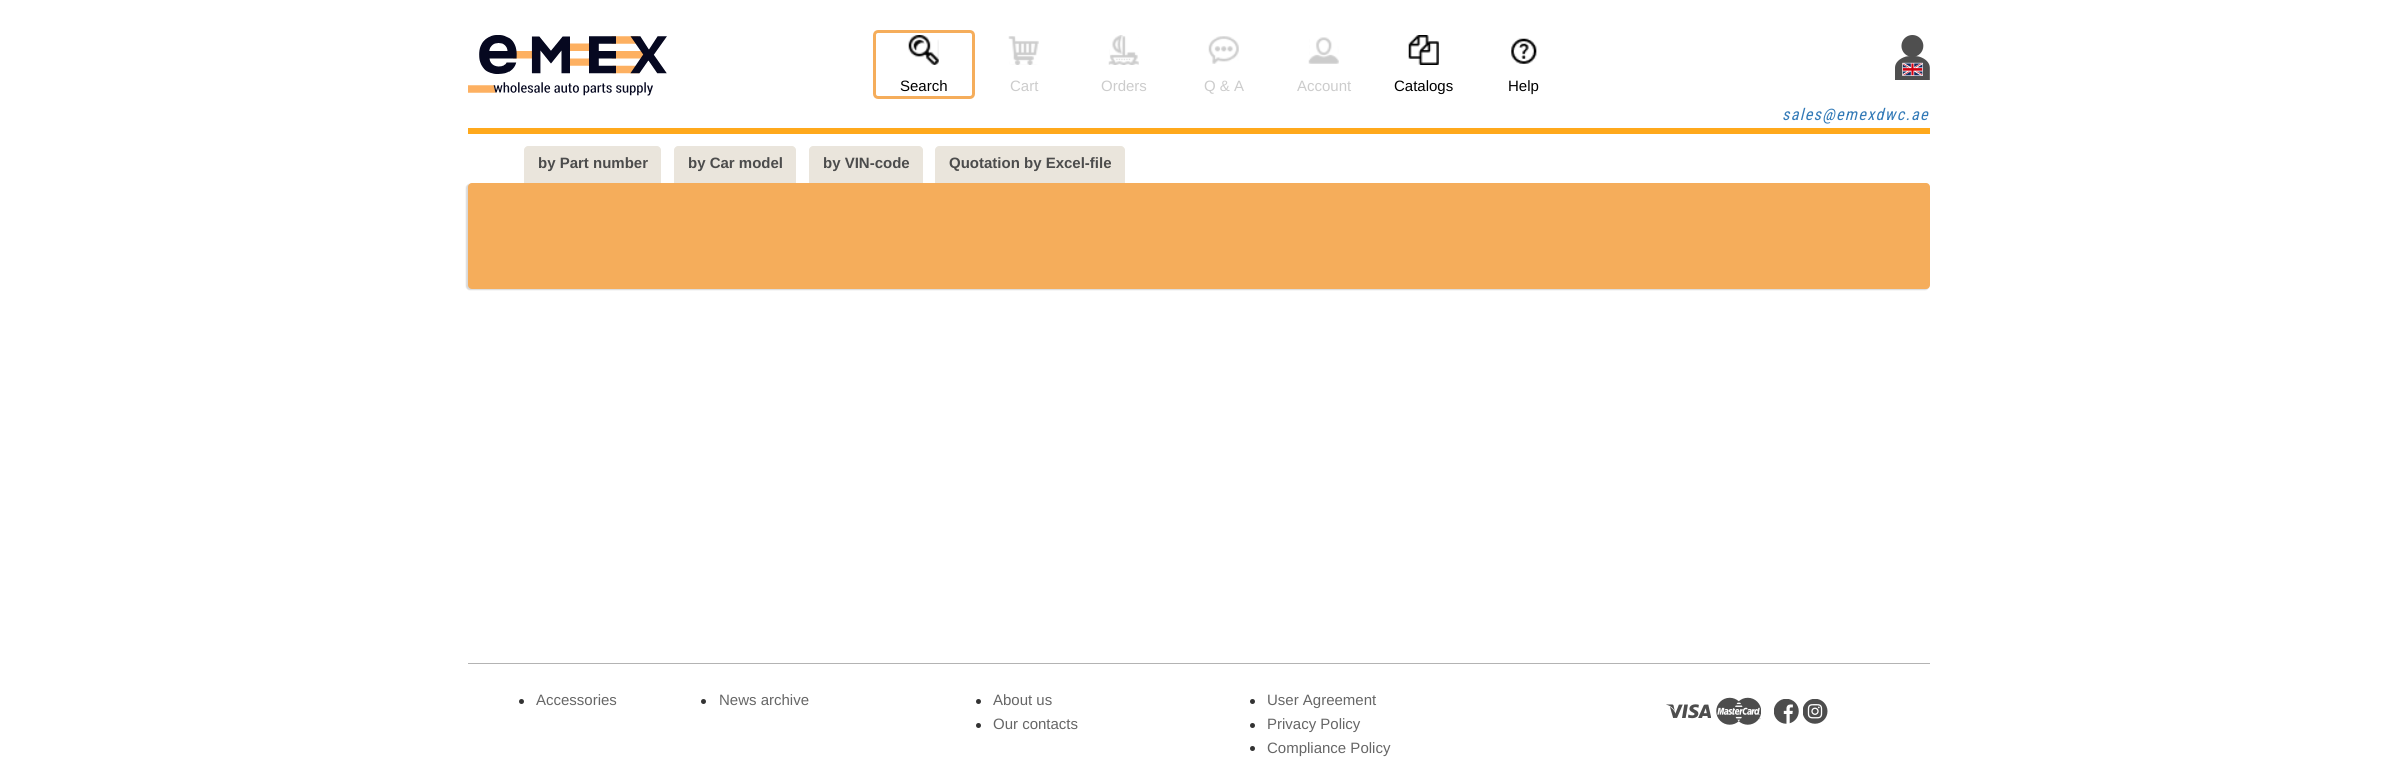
import math
import cairocffi as cairo

surface = cairo.ImageSurface(cairo.FORMAT_RGB24, 2397, 762)
cr = cairo.Context(surface)
options = cairo.FontOptions()
options.set_hint_metrics(cairo.HINT_METRICS_OFF)
options.set_hint_style(cairo.HINT_STYLE_NONE)
cr.set_font_options(options)
cr.set_miter_limit(4)


def use_color(code):
    cr.set_source_rgb(*(v / 255 for v in bytes.fromhex(code[-6:])))


def spaced_text(x, y, s, letter, word):
    cr.move_to(x, y)
    for ch in s:
        cr.show_text(ch)
        cr.rel_move_to(letter + word * (ch == ' '), 0)


def round_rect(x, y, w, h, r):
    cr.new_sub_path()
    for i, (u, v) in enumerate([(x + w - r, y + h - r), (x + r, y + h - r), (x + r, y + r), (x + w - r, y + r)]):
        cr.arc(u, v, r, i * math.pi / 2, (i + 1) * math.pi / 2)
    cr.close_path()


def shadow(x, y, w, h, r, blur, alpha):
    cr.push_group_with_content(cairo.CONTENT_ALPHA)
    cr.set_operator(cairo.OPERATOR_SOURCE)
    for i in range(15, -16, -2):
        e = blur * i / 6
        if min(w, h) + 2 * e > 0:
            cr.set_source_rgba(0, 0, 0, alpha * math.erfc((i - 1) / 8.5) / 2)
            round_rect(x - e, y - e, w + 2 * e, h + 2 * e, max(0, min(r + e + blur * .6, min(w, h) / 2 + e)))
            cr.fill()
    cr.mask(cr.pop_group())


def picture(path, x, y, w, h):
    cr.save()
    cr.set_source_surface(cairo.ImageSurface.create_from_png(path), x, y)
    cr.rectangle(x, y, w, h)
    cr.fill()
    cr.restore()


use_color("#ffffff")
cr.paint()
use_color("#ffa91c")
cr.rectangle(468, 128, 1462, 6)
cr.fill()
picture("img1.png", 468, 35, 199, 61)
picture("img2.png", 1895, 35, 35, 45)
picture("img3.png", 908, 35, 31, 30)
round_rect(874.5, 31.5, 99, 66, 3.5)
use_color("#f5ad5b")
cr.set_line_width(3)
cr.stroke()
cr.select_font_face("Liberation Sans")
cr.set_font_size(15)
use_color("#000000")
cr.move_to(900, 91)
cr.show_text("Search")
picture("img4.png", 1008, 36, 31, 29)
use_color("#cccccc")
cr.move_to(1010, 91)
cr.show_text("Cart")
picture("img5.png", 1108, 35, 31, 30)
cr.move_to(1101, 91)
cr.show_text("Orders")
picture("img6.png", 1208, 36, 31, 28)
cr.move_to(1204, 91)
cr.show_text("Q & A")
picture("img7.png", 1308, 37, 31, 27)
cr.move_to(1297, 91)
cr.show_text("Account")
picture("img8.png", 1408, 35, 31, 30)
use_color("#000000")
cr.move_to(1394, 91)
cr.show_text("Catalogs")
picture("img9.png", 1511, 38, 26, 26)
cr.move_to(1508, 91)
cr.show_text("Help")
cr.select_font_face("Roboto Condensed", cairo.FONT_SLANT_ITALIC)
cr.set_font_size(16.25)
use_color("#337ab7")
spaced_text(1782, 120, "sales@emexdwc.ae", 1.25, 0)
use_color("#000000")
shadow(466, 184, 1463, 106, 4, 0.5, 0.15)
use_color("#eae5dc")
cr.new_path()
cr.move_to(528, 146)
cr.line_to(657, 146)
cr.curve_to(659, 146, 661, 148, 661, 150)
cr.line_to(661, 183)
cr.line_to(524, 183)
cr.line_to(524, 150)
cr.curve_to(524, 148, 526, 146, 528, 146)
cr.close_path()
cr.fill()
cr.select_font_face("Liberation Sans", cairo.FONT_SLANT_NORMAL, cairo.FONT_WEIGHT_BOLD)
cr.set_font_size(15)
use_color("#4c4c4c")
cr.move_to(538, 168)
cr.show_text("by Part number")
use_color("#eae5dc")
cr.new_path()
cr.move_to(678, 146)
cr.line_to(792, 146)
cr.curve_to(794, 146, 796, 148, 796, 150)
cr.line_to(796, 183)
cr.line_to(674, 183)
cr.line_to(674, 150)
cr.curve_to(674, 148, 676, 146, 678, 146)
cr.close_path()
cr.fill()
use_color("#4c4c4c")
cr.move_to(688, 168)
cr.show_text("by Car model")
use_color("#eae5dc")
cr.new_path()
cr.move_to(813, 146)
cr.line_to(919, 146)
cr.curve_to(921, 146, 923, 148, 923, 150)
cr.line_to(923, 183)
cr.line_to(809, 183)
cr.line_to(809, 150)
cr.curve_to(809, 148, 811, 146, 813, 146)
cr.close_path()
cr.fill()
use_color("#4c4c4c")
cr.move_to(823, 168)
cr.show_text("by VIN-code")
use_color("#eae5dc")
cr.new_path()
cr.move_to(939, 146)
cr.line_to(1121, 146)
cr.curve_to(1123, 146, 1125, 148, 1125, 150)
cr.line_to(1125, 183)
cr.line_to(935, 183)
cr.line_to(935, 150)
cr.curve_to(935, 148, 937, 146, 939, 146)
cr.close_path()
cr.fill()
use_color("#4c4c4c")
cr.move_to(949, 168)
cr.show_text("Quotation by Excel-file")
use_color("#f5ad5b")
round_rect(468, 183, 1462, 106, 4)
cr.fill()
use_color("#b3b3b3")
cr.rectangle(468, 663, 1462, 1)
cr.fill()
use_color("#333333")
cr.arc(521.5, 701.5, 2.5, 0, 2 * math.pi)
cr.fill()
cr.select_font_face("Liberation Sans")
use_color("#666666")
cr.move_to(536, 705)
cr.show_text("Accessories")
use_color("#333333")
cr.new_path()
cr.arc(703.5, 701.5, 2.5, 0, 2 * math.pi)
cr.fill()
use_color("#666666")
cr.move_to(719, 705)
cr.show_text("News archive")
use_color("#333333")
cr.new_path()
cr.arc(978.5, 701.5, 2.5, 0, 2 * math.pi)
cr.fill()
use_color("#666666")
cr.move_to(993, 705)
cr.show_text("About us")
use_color("#333333")
cr.new_path()
cr.arc(978.5, 725.5, 2.5, 0, 2 * math.pi)
cr.fill()
use_color("#666666")
cr.move_to(993, 729)
cr.show_text("Our contacts")
use_color("#333333")
cr.new_path()
cr.arc(1252.5, 701.5, 2.5, 0, 2 * math.pi)
cr.fill()
use_color("#666666")
cr.move_to(1267, 705)
cr.show_text("User Agreement")
use_color("#333333")
cr.new_path()
cr.arc(1252.5, 725.5, 2.5, 0, 2 * math.pi)
cr.fill()
use_color("#666666")
cr.move_to(1267, 729)
cr.show_text("Privacy Policy")
use_color("#333333")
cr.new_path()
cr.arc(1252.5, 748.5, 2.5, 0, 2 * math.pi)
cr.fill()
use_color("#666666")
cr.move_to(1267, 753)
cr.show_text("Compliance Policy")
picture("img10.png", 1666, 704, 45, 15)
picture("img11.png", 1716, 697, 45, 28)
picture("img12.png", 1774, 699, 25, 25)
picture("img13.png", 1803, 699, 25, 25)
surface.write_to_png("result.png")
